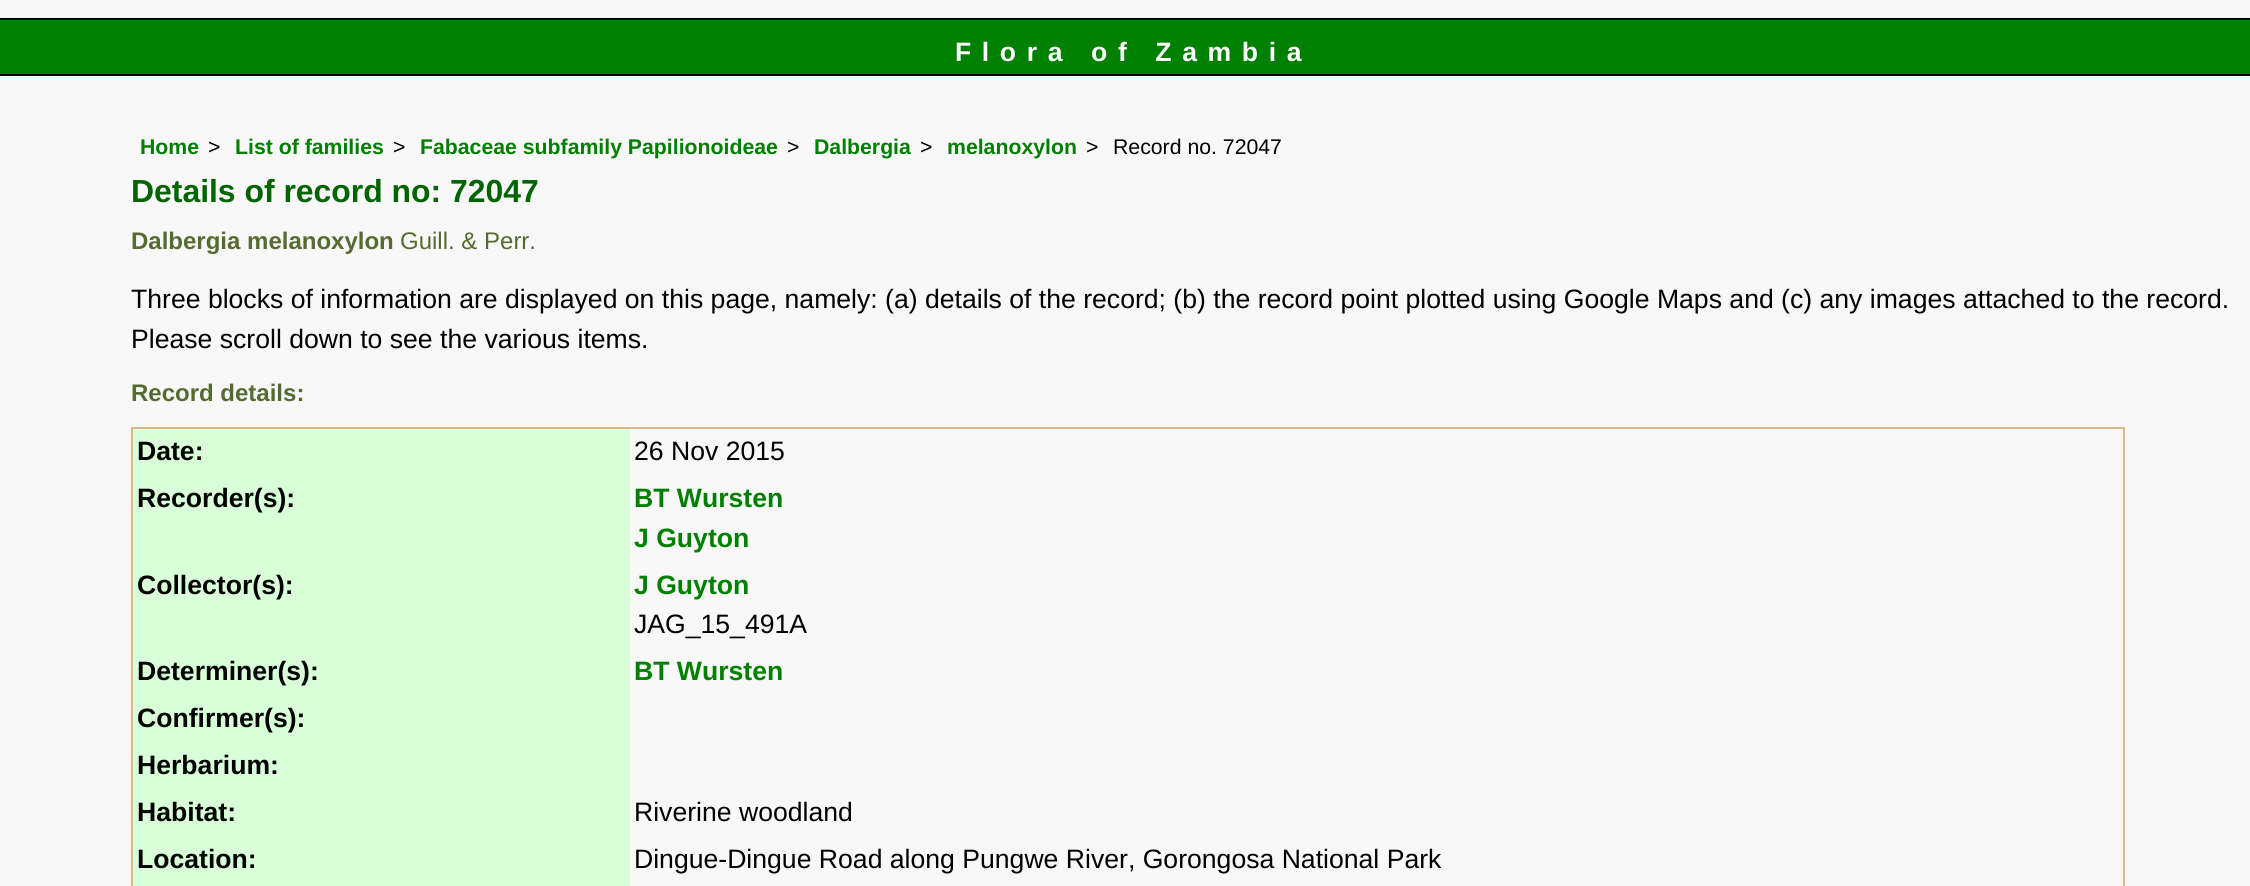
import math
import cairocffi as cairo

surface = cairo.ImageSurface(cairo.FORMAT_RGB24, 2250, 886)
cr = cairo.Context(surface)
options = cairo.FontOptions()
options.set_hint_metrics(cairo.HINT_METRICS_OFF)
options.set_hint_style(cairo.HINT_STYLE_NONE)
cr.set_font_options(options)
cr.set_miter_limit(4)


def use_color(code):
    cr.set_source_rgb(*(v / 255 for v in bytes.fromhex(code[-6:])))


def spaced_text(x, y, s, letter, word):
    cr.move_to(x, y)
    for ch in s:
        cr.show_text(ch)
        cr.rel_move_to(letter + word * (ch == ' '), 0)


use_color("#f8f8f8")
cr.paint()
use_color("#008000")
cr.rectangle(0, 20, 2250, 54)
cr.fill()
use_color("#000000")
cr.rectangle(0, 18, 2250, 2)
cr.fill()
cr.rectangle(0, 74, 2250, 2)
cr.fill()
cr.select_font_face("Liberation Sans", cairo.FONT_SLANT_NORMAL, cairo.FONT_WEIGHT_BOLD)
cr.set_font_size(26.6)
use_color("#ffffff")
spaced_text(955, 61, "Flora of Zambia", 10.6, 0)
cr.set_font_size(21.25)
use_color("#008000")
cr.move_to(140, 154)
cr.show_text("Home")
cr.select_font_face("Liberation Sans")
use_color("#000000")
cr.move_to(208, 154)
cr.show_text(">")
cr.select_font_face("Liberation Sans", cairo.FONT_SLANT_NORMAL, cairo.FONT_WEIGHT_BOLD)
use_color("#008000")
cr.move_to(235, 154)
cr.show_text("List of families")
cr.select_font_face("Liberation Sans")
use_color("#000000")
cr.move_to(393, 154)
cr.show_text(">")
cr.select_font_face("Liberation Sans", cairo.FONT_SLANT_NORMAL, cairo.FONT_WEIGHT_BOLD)
use_color("#008000")
cr.move_to(420, 154)
cr.show_text("Fabaceae subfamily Papilionoideae")
cr.select_font_face("Liberation Sans")
use_color("#000000")
cr.move_to(787, 154)
cr.show_text(">")
cr.select_font_face("Liberation Sans", cairo.FONT_SLANT_NORMAL, cairo.FONT_WEIGHT_BOLD)
use_color("#008000")
cr.move_to(814, 154)
cr.show_text("Dalbergia")
cr.select_font_face("Liberation Sans")
use_color("#000000")
cr.move_to(920, 154)
cr.show_text(">")
cr.select_font_face("Liberation Sans", cairo.FONT_SLANT_NORMAL, cairo.FONT_WEIGHT_BOLD)
use_color("#008000")
cr.move_to(947, 154)
cr.show_text("melanoxylon")
cr.select_font_face("Liberation Sans")
use_color("#000000")
cr.move_to(1086, 154)
cr.show_text(">")
cr.move_to(1113, 154)
cr.show_text("Record no. 72047")
cr.select_font_face("Liberation Sans", cairo.FONT_SLANT_NORMAL, cairo.FONT_WEIGHT_BOLD)
cr.set_font_size(31.9)
use_color("#006400")
cr.move_to(131, 202)
cr.show_text("Details of record no: 72047")
cr.set_font_size(24)
use_color("#556b2f")
cr.move_to(131, 249)
cr.show_text("Dalbergia melanoxylon")
cr.select_font_face("Liberation Sans")
cr.move_to(400, 249)
cr.show_text("Guill. & Perr.")
cr.set_font_size(26.6)
use_color("#000000")
cr.move_to(131, 308)
cr.show_text("Three blocks of information are displayed on this page, namely: (a) details of the record; (b) the record point plotted using Google Maps and (c) any images attached to the record.")
cr.move_to(131, 348)
cr.show_text("Please scroll down to see the various items.")
cr.select_font_face("Liberation Sans", cairo.FONT_SLANT_NORMAL, cairo.FONT_WEIGHT_BOLD)
cr.set_font_size(24)
use_color("#556b2f")
cr.move_to(131, 401)
cr.show_text("Record details:")
use_color("#deb887")
cr.rectangle(131, 427, 1994, 2)
cr.fill()
cr.rectangle(2123, 427, 2, 459)
cr.fill()
cr.rectangle(131, 427, 2, 459)
cr.fill()
use_color("#d8ffd8")
cr.rectangle(133, 429, 497, 457)
cr.fill()
cr.set_font_size(26.6)
use_color("#000000")
cr.move_to(137, 460)
cr.show_text("Date:")
cr.select_font_face("Liberation Sans")
cr.move_to(634, 460)
cr.show_text("26 Nov 2015")
cr.select_font_face("Liberation Sans", cairo.FONT_SLANT_NORMAL, cairo.FONT_WEIGHT_BOLD)
cr.move_to(137, 507)
cr.show_text("Recorder(s):")
use_color("#008000")
cr.move_to(634, 507)
cr.show_text("BT Wursten")
cr.move_to(634, 547)
cr.show_text("J Guyton")
use_color("#000000")
cr.move_to(137, 594)
cr.show_text("Collector(s):")
use_color("#008000")
cr.move_to(634, 594)
cr.show_text("J Guyton")
cr.select_font_face("Liberation Sans")
use_color("#000000")
cr.move_to(634, 633)
cr.show_text("JAG_15_491A")
cr.select_font_face("Liberation Sans", cairo.FONT_SLANT_NORMAL, cairo.FONT_WEIGHT_BOLD)
cr.move_to(137, 680)
cr.show_text("Determiner(s):")
use_color("#008000")
cr.move_to(634, 680)
cr.show_text("BT Wursten")
use_color("#000000")
cr.move_to(137, 727)
cr.show_text("Confirmer(s):")
cr.move_to(137, 774)
cr.show_text("Herbarium:")
cr.move_to(137, 821)
cr.show_text("Habitat:")
cr.select_font_face("Liberation Sans")
cr.move_to(634, 821)
cr.show_text("Riverine woodland")
cr.select_font_face("Liberation Sans", cairo.FONT_SLANT_NORMAL, cairo.FONT_WEIGHT_BOLD)
cr.move_to(137, 868)
cr.show_text("Location:")
cr.select_font_face("Liberation Sans")
cr.move_to(634, 868)
cr.show_text("Dingue-Dingue Road along Pungwe River, Gorongosa National Park")
surface.write_to_png("result.png")
